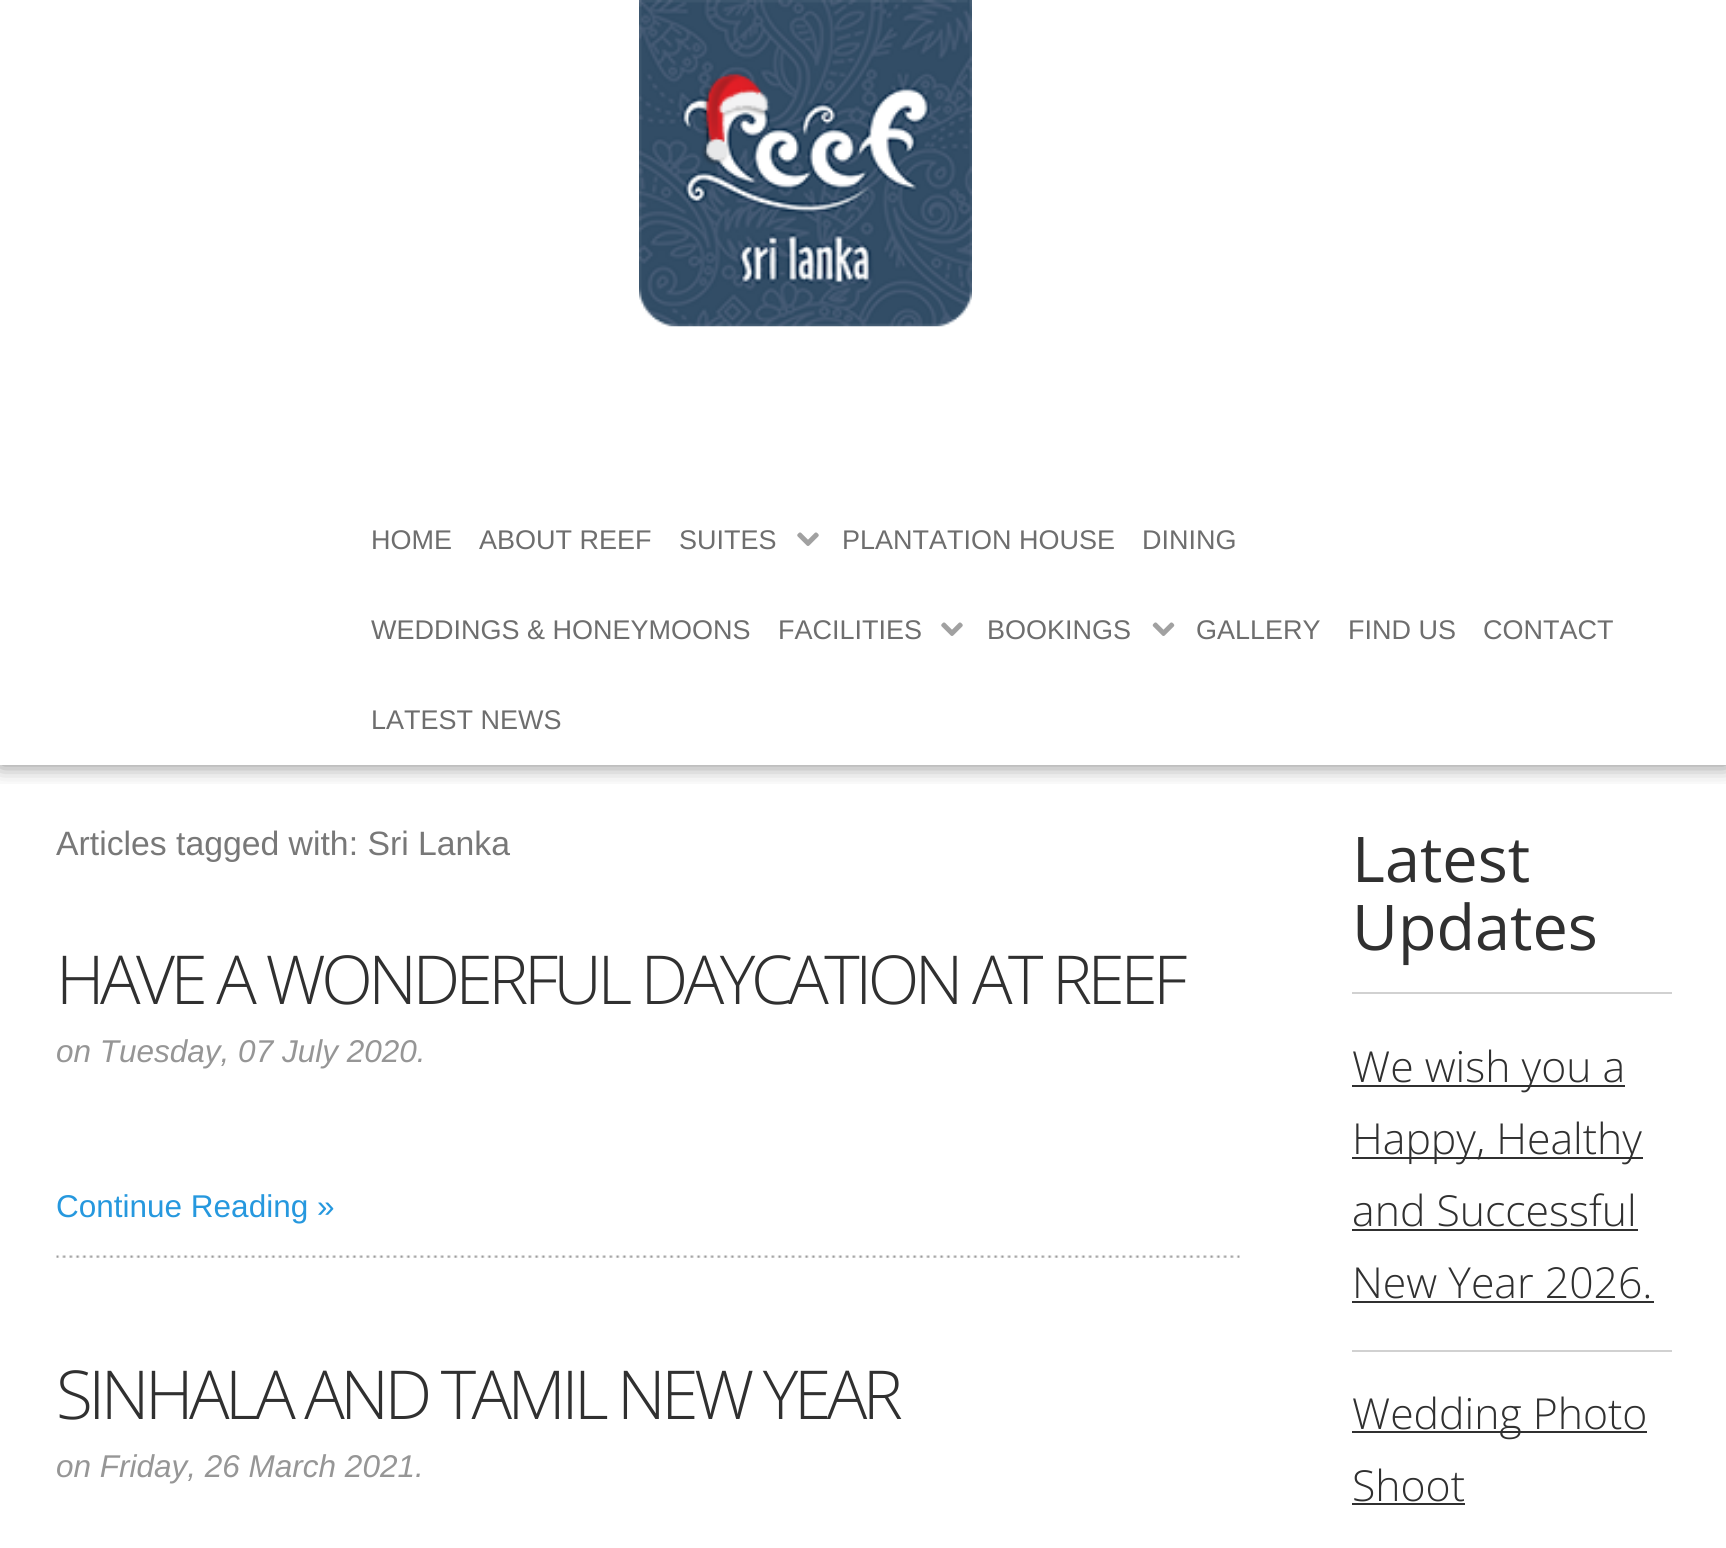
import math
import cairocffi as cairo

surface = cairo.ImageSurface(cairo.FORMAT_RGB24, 1726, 1548)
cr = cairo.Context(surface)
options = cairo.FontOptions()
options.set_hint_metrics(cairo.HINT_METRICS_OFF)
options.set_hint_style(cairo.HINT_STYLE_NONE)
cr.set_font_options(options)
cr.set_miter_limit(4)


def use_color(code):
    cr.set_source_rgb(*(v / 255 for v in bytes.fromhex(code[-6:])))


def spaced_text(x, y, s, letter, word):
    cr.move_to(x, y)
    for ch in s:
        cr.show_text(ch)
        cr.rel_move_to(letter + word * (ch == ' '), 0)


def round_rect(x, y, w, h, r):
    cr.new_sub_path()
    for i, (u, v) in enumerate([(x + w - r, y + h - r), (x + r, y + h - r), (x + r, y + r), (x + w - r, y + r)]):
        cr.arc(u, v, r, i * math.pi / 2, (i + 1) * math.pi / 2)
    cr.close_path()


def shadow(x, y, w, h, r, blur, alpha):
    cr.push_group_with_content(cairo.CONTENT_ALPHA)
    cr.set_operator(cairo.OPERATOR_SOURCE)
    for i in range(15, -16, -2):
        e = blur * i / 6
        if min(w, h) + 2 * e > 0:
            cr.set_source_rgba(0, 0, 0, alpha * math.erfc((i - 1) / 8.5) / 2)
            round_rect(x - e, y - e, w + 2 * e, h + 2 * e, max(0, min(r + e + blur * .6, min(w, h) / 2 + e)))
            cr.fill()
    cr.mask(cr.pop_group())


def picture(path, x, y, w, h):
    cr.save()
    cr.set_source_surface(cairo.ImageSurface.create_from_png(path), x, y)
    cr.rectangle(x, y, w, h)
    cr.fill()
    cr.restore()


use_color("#ffffff")
cr.paint()
cr.save()
cr.rectangle(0, 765, 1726, 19)
cr.clip()
use_color("#000000")
shadow(0, 0, 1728, 765, 0, 11, 0.5)
cr.restore()
picture("img1.png", 639, 0, 333, 327)
cr.select_font_face("Liberation Sans")
cr.set_font_size(27)
use_color("#6e6e6e")
cr.move_to(371, 549)
cr.show_text("HOME")
cr.move_to(479, 549)
cr.show_text("ABOUT REEF")
cr.move_to(679, 549)
cr.show_text("SUITES")
picture("img2.png", 797, 532, 22, 14)
cr.move_to(842, 549)
cr.show_text("PLANTATION HOUSE")
cr.move_to(1142, 549)
cr.show_text("DINING")
cr.move_to(371, 639)
cr.show_text("WEDDINGS & HONEYMOONS")
cr.move_to(778, 639)
cr.show_text("FACILITIES")
picture("img2.png", 941, 622, 22, 14)
cr.move_to(987, 639)
cr.show_text("BOOKINGS")
picture("img3.png", 1152, 622, 23, 14)
cr.move_to(1196, 639)
cr.show_text("GALLERY")
cr.move_to(1348, 639)
cr.show_text("FIND US")
cr.move_to(1483, 639)
cr.show_text("CONTACT")
cr.move_to(371, 729)
cr.show_text("LATEST NEWS")
cr.set_font_size(33.75)
use_color("#787878")
cr.move_to(56, 855)
cr.show_text("Articles tagged with: Sri Lanka")
picture("img4.png", 56, 1255, 1184, 3)
cr.select_font_face("Open Sans Light")
cr.set_font_size(67.5)
use_color("#303030")
spaced_text(56, 1004, "HAVE A WONDERFUL DAYCATION AT REEF", -4.5, 0)
cr.select_font_face("Liberation Sans", cairo.FONT_SLANT_ITALIC)
cr.set_font_size(31.5)
use_color("#969696")
cr.move_to(56, 1062)
cr.show_text("on Tuesday, 07 July 2020.")
cr.select_font_face("Liberation Sans")
use_color("#2698de")
cr.move_to(56, 1217)
cr.show_text("Continue Reading »")
cr.select_font_face("Open Sans Light")
cr.set_font_size(67.5)
use_color("#303030")
spaced_text(56, 1419, "SINHALA AND TAMIL NEW YEAR", -4.5, 0)
cr.select_font_face("Liberation Sans", cairo.FONT_SLANT_ITALIC)
cr.set_font_size(31.5)
use_color("#969696")
cr.move_to(56, 1477)
cr.show_text("on Friday, 26 March 2021.")
use_color("#d1d1d1")
cr.rectangle(1352, 992, 320, 2)
cr.fill()
cr.select_font_face("Open Sans")
cr.set_font_size(63)
use_color("#303030")
cr.move_to(1352, 882)
cr.show_text("Latest")
cr.move_to(1352, 950)
cr.show_text("Updates")
use_color("#d1d1d1")
cr.rectangle(1352, 1350, 320, 2)
cr.fill()
use_color("#303030")
cr.rectangle(1352, 1085, 273, 2)
cr.fill()
cr.select_font_face("Open Sans Light")
cr.set_font_size(42.75)
cr.move_to(1352, 1082)
cr.show_text("We wish you a")
cr.rectangle(1352, 1157, 291, 2)
cr.fill()
cr.move_to(1352, 1154)
cr.show_text("Happy, Healthy")
cr.move_to(1352, 1226)
cr.show_text("and Successful")
cr.rectangle(1352, 1229, 286, 2)
cr.fill()
cr.move_to(1352, 1298)
cr.show_text("New Year 2026.")
cr.rectangle(1352, 1301, 302, 2)
cr.fill()
cr.rectangle(1352, 1431, 295, 2)
cr.fill()
cr.move_to(1352, 1429)
cr.show_text("Wedding Photo")
cr.move_to(1352, 1501)
cr.show_text("Shoot")
cr.rectangle(1352, 1503, 113, 2)
cr.fill()
surface.write_to_png("result.png")
